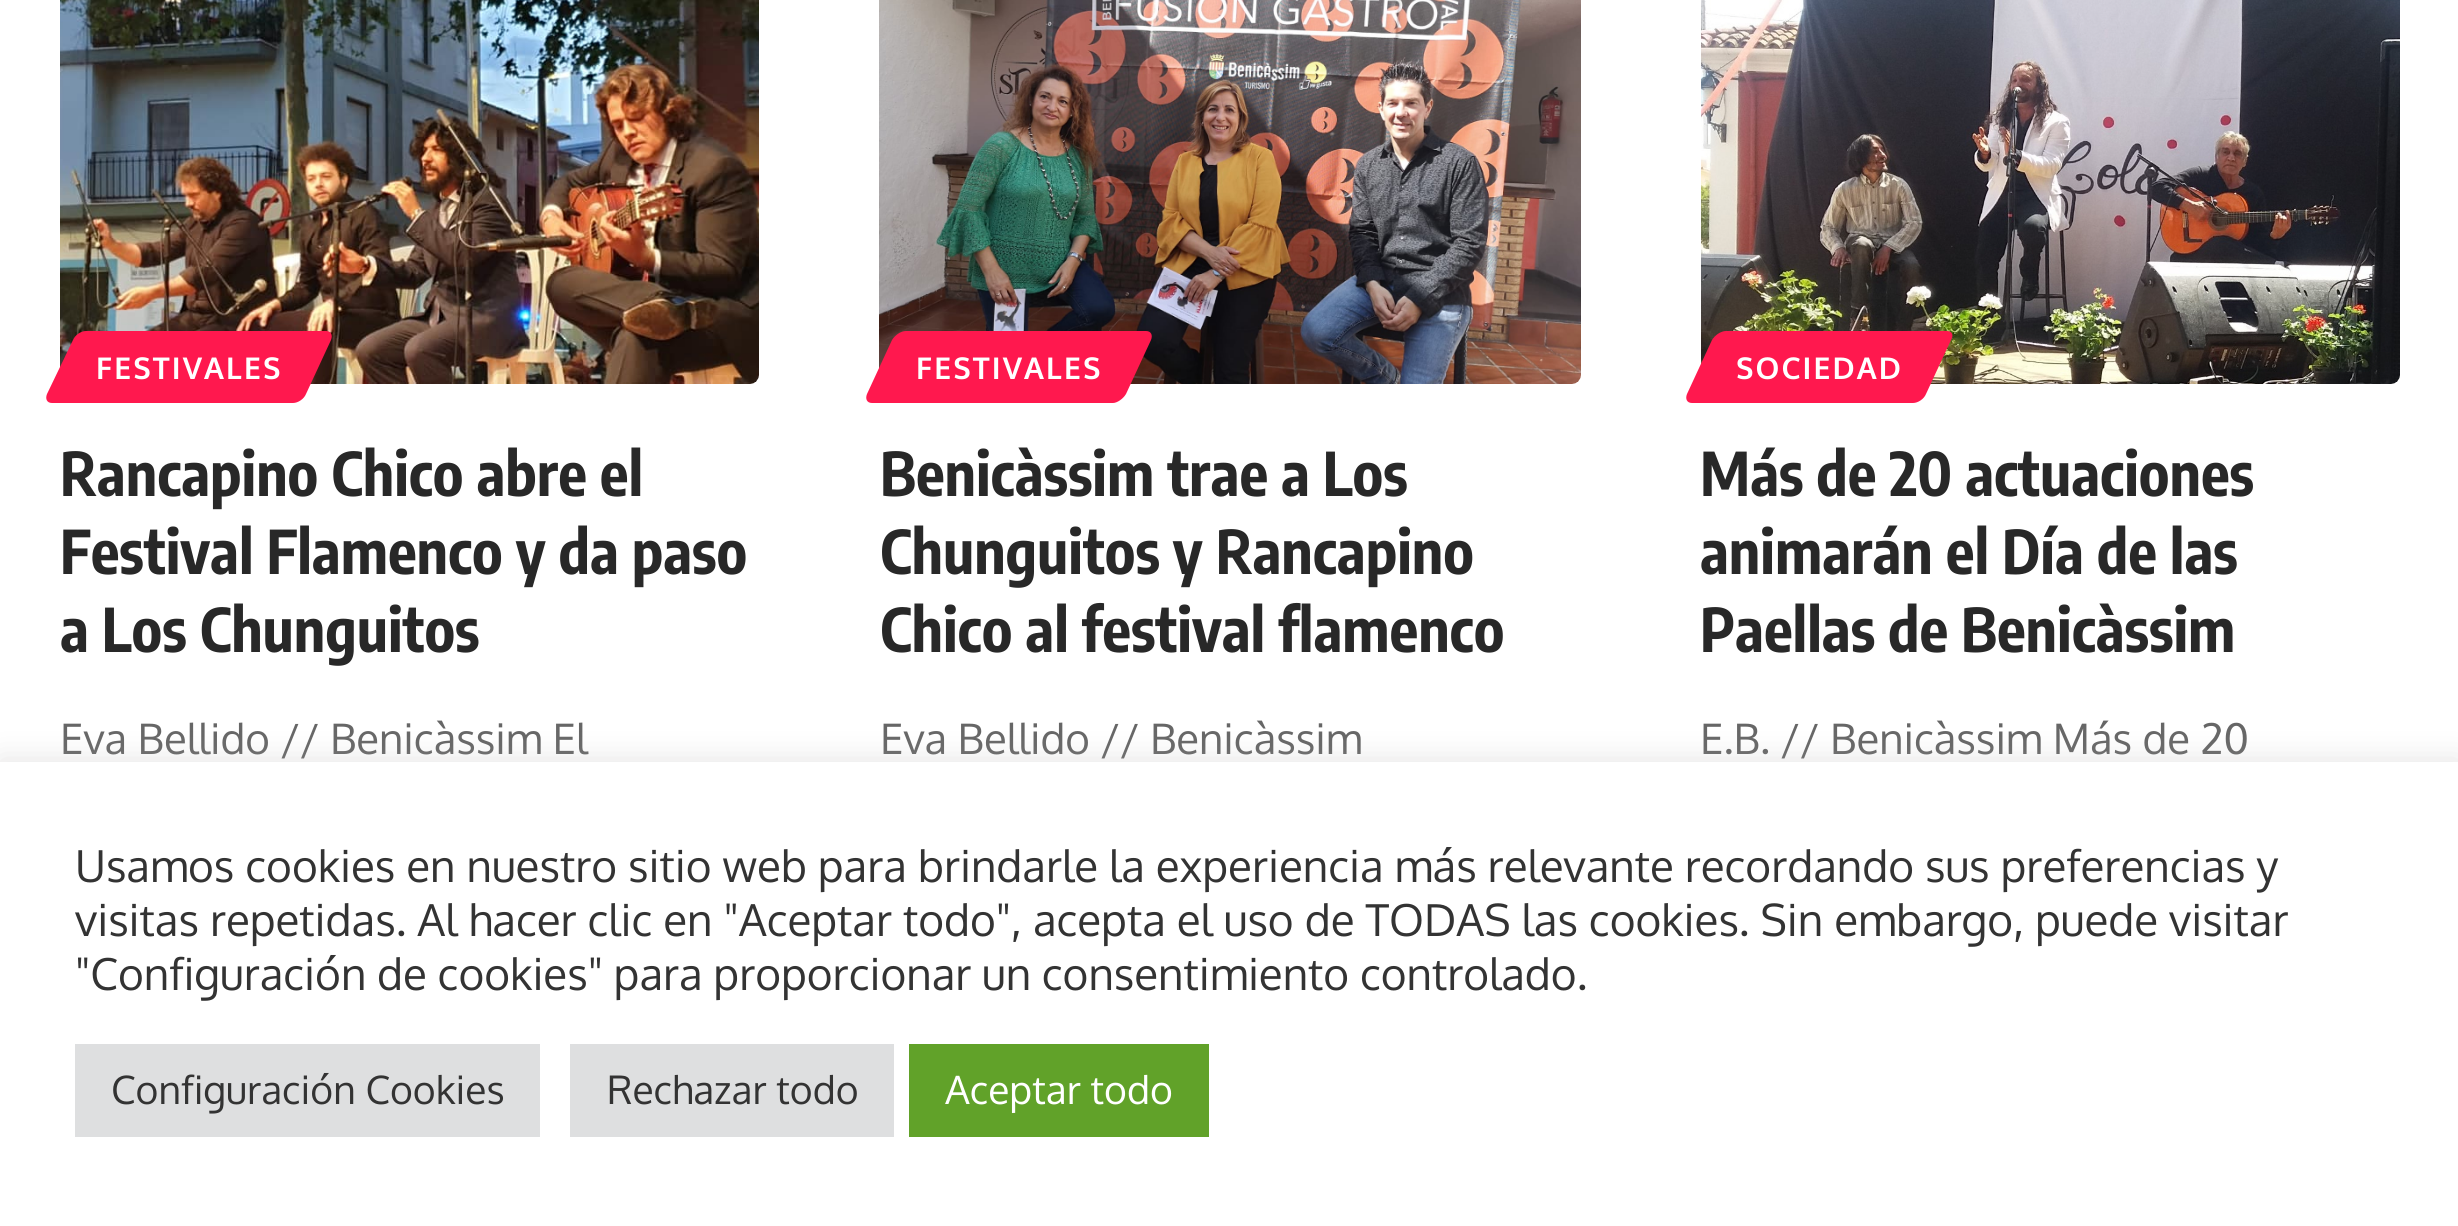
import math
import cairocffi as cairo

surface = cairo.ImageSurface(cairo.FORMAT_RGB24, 2458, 1226)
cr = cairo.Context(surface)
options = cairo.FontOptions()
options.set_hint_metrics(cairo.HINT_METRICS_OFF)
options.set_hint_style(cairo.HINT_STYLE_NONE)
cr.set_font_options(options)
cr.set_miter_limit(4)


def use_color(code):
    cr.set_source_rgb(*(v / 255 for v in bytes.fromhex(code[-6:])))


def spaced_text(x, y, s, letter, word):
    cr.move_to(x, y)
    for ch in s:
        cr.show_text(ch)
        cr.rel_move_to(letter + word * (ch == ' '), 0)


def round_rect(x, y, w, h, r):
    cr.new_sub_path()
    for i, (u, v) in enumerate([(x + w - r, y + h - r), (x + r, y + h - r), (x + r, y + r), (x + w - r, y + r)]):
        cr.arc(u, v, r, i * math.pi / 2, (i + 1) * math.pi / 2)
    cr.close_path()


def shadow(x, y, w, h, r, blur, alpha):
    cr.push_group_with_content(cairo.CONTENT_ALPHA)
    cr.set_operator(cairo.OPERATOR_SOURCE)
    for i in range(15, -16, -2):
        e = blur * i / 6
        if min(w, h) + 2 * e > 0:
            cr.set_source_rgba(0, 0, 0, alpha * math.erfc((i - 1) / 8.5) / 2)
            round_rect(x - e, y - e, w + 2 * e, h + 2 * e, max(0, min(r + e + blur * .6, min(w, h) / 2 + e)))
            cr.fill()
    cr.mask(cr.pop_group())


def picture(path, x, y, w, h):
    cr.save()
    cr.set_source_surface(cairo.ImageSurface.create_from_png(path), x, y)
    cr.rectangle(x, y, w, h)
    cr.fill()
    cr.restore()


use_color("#ffffff")
cr.paint()
picture("img1.png", 60, 0, 699, 384)
use_color("#ff184e")
cr.new_path()
cr.move_to(86, 331)
cr.line_to(326, 331)
cr.curve_to(331, 331, 333, 335, 331, 340)
cr.line_to(306, 394)
cr.curve_to(304, 399, 298, 403, 293, 403)
cr.line_to(52, 403)
cr.curve_to(47, 403, 45, 399, 47, 394)
cr.line_to(73, 340)
cr.curve_to(75, 335, 81, 331, 86, 331)
cr.close_path()
cr.fill()
cr.select_font_face("Oxygen", cairo.FONT_SLANT_NORMAL, cairo.FONT_WEIGHT_BOLD)
cr.set_font_size(30)
use_color("#ffffff")
spaced_text(96, 379, "FESTIVALES", 2.1, 0)
cr.select_font_face("Encode Sans Condensed", cairo.FONT_SLANT_NORMAL, cairo.FONT_WEIGHT_BOLD)
cr.set_font_size(60)
use_color("#282828")
cr.move_to(60, 496)
cr.show_text("Rancapino Chico abre el")
cr.move_to(60, 574)
cr.show_text("Festival Flamenco y da paso")
cr.move_to(60, 652)
cr.show_text("a Los Chunguitos")
cr.select_font_face("Oxygen")
cr.set_font_size(42)
use_color("#666666")
cr.move_to(60, 754)
cr.show_text("Eva Bellido // Benicàssim El")
picture("img2.png", 879, 0, 702, 384)
use_color("#ff184e")
cr.new_path()
cr.move_to(906, 331)
cr.line_to(1146, 331)
cr.curve_to(1151, 331, 1153, 335, 1151, 340)
cr.line_to(1126, 394)
cr.curve_to(1123, 399, 1117, 403, 1113, 403)
cr.line_to(872, 403)
cr.curve_to(867, 403, 865, 399, 867, 394)
cr.line_to(892, 340)
cr.curve_to(895, 335, 901, 331, 906, 331)
cr.close_path()
cr.fill()
cr.select_font_face("Oxygen", cairo.FONT_SLANT_NORMAL, cairo.FONT_WEIGHT_BOLD)
cr.set_font_size(30)
use_color("#ffffff")
spaced_text(916, 379, "FESTIVALES", 2.1, 0)
cr.select_font_face("Encode Sans Condensed", cairo.FONT_SLANT_NORMAL, cairo.FONT_WEIGHT_BOLD)
cr.set_font_size(60)
use_color("#282828")
cr.move_to(880, 496)
cr.show_text("Benicàssim trae a Los")
cr.move_to(880, 574)
cr.show_text("Chunguitos y Rancapino")
cr.move_to(880, 652)
cr.show_text("Chico al festival flamenco")
cr.select_font_face("Oxygen")
cr.set_font_size(42)
use_color("#666666")
cr.move_to(880, 754)
cr.show_text("Eva Bellido // Benicàssim")
picture("img3.png", 1701, 0, 699, 384)
use_color("#ff184e")
cr.new_path()
cr.move_to(1726, 331)
cr.line_to(1947, 331)
cr.curve_to(1952, 331, 1954, 335, 1951, 340)
cr.line_to(1926, 394)
cr.curve_to(1924, 399, 1918, 403, 1913, 403)
cr.line_to(1692, 403)
cr.curve_to(1687, 403, 1685, 399, 1687, 394)
cr.line_to(1712, 340)
cr.curve_to(1715, 335, 1721, 331, 1726, 331)
cr.close_path()
cr.fill()
cr.select_font_face("Oxygen", cairo.FONT_SLANT_NORMAL, cairo.FONT_WEIGHT_BOLD)
cr.set_font_size(30)
use_color("#ffffff")
spaced_text(1736, 379, "SOCIEDAD", 2.1, 0)
cr.select_font_face("Encode Sans Condensed", cairo.FONT_SLANT_NORMAL, cairo.FONT_WEIGHT_BOLD)
cr.set_font_size(60)
use_color("#282828")
cr.move_to(1700, 496)
cr.show_text("Más de 20 actuaciones")
cr.move_to(1700, 574)
cr.show_text("animarán el Día de las")
cr.move_to(1700, 652)
cr.show_text("Paellas de Benicàssim")
cr.select_font_face("Oxygen")
cr.set_font_size(42)
use_color("#666666")
cr.move_to(1700, 754)
cr.show_text("E.B. // Benicàssim Más de 20")
use_color("#acabab")
shadow(0, 759, 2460, 465, 0, 15, 0.3)
use_color("#ffffff")
cr.rectangle(0, 762, 2458, 464)
cr.fill()
cr.set_font_size(44)
use_color("#333333")
cr.move_to(75, 882)
cr.show_text("Usamos cookies en nuestro sitio web para brindarle la experiencia más relevante recordando sus preferencias y")
cr.move_to(75, 936)
cr.show_text("visitas repetidas. Al hacer clic en \"Aceptar todo\", acepta el uso de TODAS las cookies. Sin embargo, puede visitar")
spaced_text(75, 990, "\"Configuración de cookies\" para proporcionar un consentimiento controlado.", 0, -0.25)
use_color("#dedfe0")
cr.rectangle(75, 1044, 465, 93)
cr.fill()
cr.set_font_size(39)
use_color("#333333")
cr.move_to(111, 1104)
cr.show_text("Configuración Cookies")
use_color("#dedfe0")
cr.rectangle(570, 1044, 324, 93)
cr.fill()
use_color("#333333")
cr.move_to(607, 1104)
cr.show_text("Rechazar todo")
use_color("#61a229")
cr.rectangle(909, 1044, 300, 93)
cr.fill()
use_color("#ffffff")
cr.move_to(945, 1104)
cr.show_text("Aceptar todo")
surface.write_to_png("result.png")
